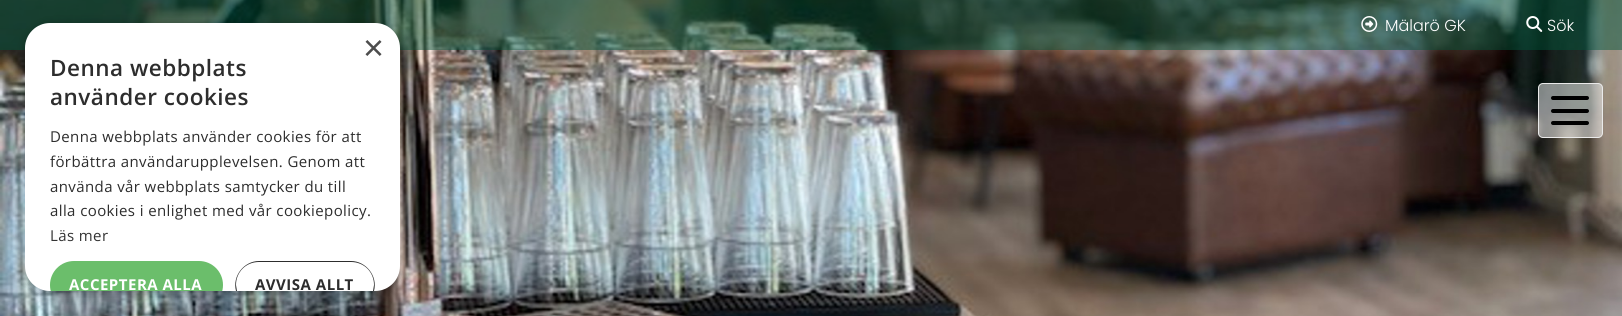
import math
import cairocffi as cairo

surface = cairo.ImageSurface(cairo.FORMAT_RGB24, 1622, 316)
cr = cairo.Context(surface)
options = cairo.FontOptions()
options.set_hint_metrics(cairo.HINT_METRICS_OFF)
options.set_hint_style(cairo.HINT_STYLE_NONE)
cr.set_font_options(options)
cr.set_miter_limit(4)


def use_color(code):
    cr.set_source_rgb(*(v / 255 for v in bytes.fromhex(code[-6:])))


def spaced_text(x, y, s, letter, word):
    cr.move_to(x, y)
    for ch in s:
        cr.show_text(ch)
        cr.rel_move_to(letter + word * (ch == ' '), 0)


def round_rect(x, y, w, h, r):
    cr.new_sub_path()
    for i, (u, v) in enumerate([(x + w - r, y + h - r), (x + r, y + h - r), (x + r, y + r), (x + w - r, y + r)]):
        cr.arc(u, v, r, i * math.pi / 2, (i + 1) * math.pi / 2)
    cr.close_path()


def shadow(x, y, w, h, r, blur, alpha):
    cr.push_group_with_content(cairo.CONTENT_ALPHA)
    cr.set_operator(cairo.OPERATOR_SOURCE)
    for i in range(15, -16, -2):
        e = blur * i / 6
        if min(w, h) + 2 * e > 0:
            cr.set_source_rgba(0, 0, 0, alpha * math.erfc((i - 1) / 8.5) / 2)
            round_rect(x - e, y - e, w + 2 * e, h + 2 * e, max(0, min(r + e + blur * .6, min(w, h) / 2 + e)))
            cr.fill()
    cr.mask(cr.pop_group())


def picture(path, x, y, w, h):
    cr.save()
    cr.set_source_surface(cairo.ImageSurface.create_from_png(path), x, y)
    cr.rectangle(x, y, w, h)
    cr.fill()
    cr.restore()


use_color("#ffffff")
cr.paint()
picture("img1.png", 0, 0, 1622, 316)
cr.set_source_rgba(0.008, 0.333, 0.224, 0.48)
cr.rectangle(0, 0, 1622, 50)
cr.fill()
picture("img2.png", 1361, 16, 17, 16)
cr.select_font_face("Poppins Light")
cr.set_font_size(16)
use_color("#ffffff")
cr.move_to(1385, 31)
cr.show_text("Mälarö GK")
picture("img3.png", 1526, 16, 17, 16)
cr.move_to(1547, 31)
cr.show_text("Sök")
cr.set_source_rgba(1, 1, 1, 0.5)
round_rect(1538.5, 83.5, 64, 54, 4.5)
cr.fill_preserve()
use_color("#eaeaea")
cr.set_line_width(1)
cr.stroke()
use_color("#000000")
round_rect(1551, 96, 38, 4, 2)
cr.fill()
round_rect(1551, 109, 38, 4, 2)
cr.fill()
round_rect(1551, 121, 38, 4, 2)
cr.fill()
use_color("#000000")
shadow(26, 25, 375, 269, 25, 5, 0.35)
use_color("#ffffff")
round_rect(25, 23, 375, 268, 25)
cr.fill()
cr.select_font_face("Liberation Sans")
cr.set_font_size(36)
use_color("#4d4d4d")
cr.move_to(363, 60)
cr.show_text("×")
cr.select_font_face("Open Sans SemiBold")
cr.set_font_size(22.5)
use_color("#2d2d2d")
spaced_text(50, 76, "Denna webbplats", 0.5, 0)
spaced_text(50, 105, "använder cookies", 0.5, 0)
cr.select_font_face("Open Sans")
cr.set_font_size(15)
spaced_text(50, 142, "Denna webbplats använder cookies för att", 0.4, 0)
spaced_text(50, 167, "förbättra användarupplevelsen. Genom att", 0.4, 0)
spaced_text(50, 192, "använda vår webbplats samtycker du till", 0.4, 0)
spaced_text(50, 216, "alla cookies i enlighet med vår cookiepolicy.", 0.4, 0)
use_color("#333333")
spaced_text(50, 241, "Läs mer", 0.4, 0)
cr.save()
round_rect(25, 23, 375, 268, 25)
cr.clip()
use_color("#6bbe6b")
round_rect(50, 261, 173, 48, 24)
cr.fill()
cr.restore()
cr.select_font_face("Open Sans", cairo.FONT_SLANT_NORMAL, cairo.FONT_WEIGHT_BOLD)
use_color("#ffffff")
spaced_text(69, 290, "ACCEPTERA ALLA", 0.5, 0)
use_color("#2d2d2d")
cr.new_path()
cr.move_to(259, 261)
cr.curve_to(244, 261, 232, 276, 236, 291)
cr.line_to(237, 291)
cr.line_to(236, 285)
cr.curve_to(236, 272, 246, 262, 259, 262)
cr.line_to(351, 262)
cr.curve_to(364, 262, 374, 272, 374, 285)
cr.line_to(373, 291)
cr.line_to(374, 291)
cr.curve_to(378, 276, 366, 261, 351, 261)
cr.close_path()
cr.fill()
spaced_text(255, 290, "AVVISA ALLT", 0.5, 0)
surface.write_to_png("result.png")
